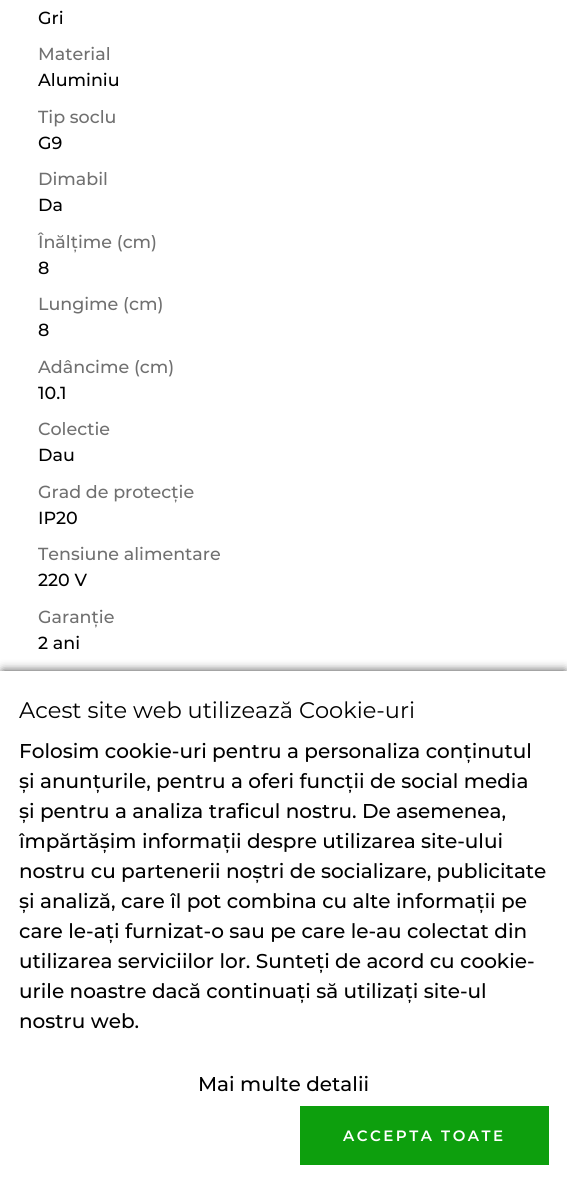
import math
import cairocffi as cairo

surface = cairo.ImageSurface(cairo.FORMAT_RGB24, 567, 1190)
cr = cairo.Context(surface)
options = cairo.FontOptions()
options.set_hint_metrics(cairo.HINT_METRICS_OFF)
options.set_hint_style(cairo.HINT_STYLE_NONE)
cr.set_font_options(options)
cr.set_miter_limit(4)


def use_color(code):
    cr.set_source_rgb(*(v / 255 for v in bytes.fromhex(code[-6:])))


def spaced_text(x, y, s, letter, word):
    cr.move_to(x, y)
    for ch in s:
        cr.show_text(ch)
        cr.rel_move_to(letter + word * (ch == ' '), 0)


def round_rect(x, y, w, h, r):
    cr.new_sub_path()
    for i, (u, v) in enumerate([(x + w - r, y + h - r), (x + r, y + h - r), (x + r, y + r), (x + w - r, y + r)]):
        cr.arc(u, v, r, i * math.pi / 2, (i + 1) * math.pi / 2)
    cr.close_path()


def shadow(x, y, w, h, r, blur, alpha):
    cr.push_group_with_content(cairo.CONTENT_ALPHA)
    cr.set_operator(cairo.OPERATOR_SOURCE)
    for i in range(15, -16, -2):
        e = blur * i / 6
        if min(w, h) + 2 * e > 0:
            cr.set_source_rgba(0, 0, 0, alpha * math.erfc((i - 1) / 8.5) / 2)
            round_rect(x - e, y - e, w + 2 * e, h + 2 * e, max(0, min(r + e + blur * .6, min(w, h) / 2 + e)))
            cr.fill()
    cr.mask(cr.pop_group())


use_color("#ffffff")
cr.paint()
cr.select_font_face("Montserrat Medium")
cr.set_font_size(17.5)
use_color("#000000")
cr.move_to(38, 24)
cr.show_text("Gri")
use_color("#707070")
cr.move_to(38, 60)
cr.show_text("Material")
use_color("#000000")
cr.move_to(38, 86)
cr.show_text("Aluminiu")
use_color("#707070")
cr.move_to(38, 123)
cr.show_text("Tip soclu")
use_color("#000000")
cr.move_to(38, 149)
cr.show_text("G9")
use_color("#707070")
cr.move_to(38, 185)
cr.show_text("Dimabil")
use_color("#000000")
cr.move_to(38, 211)
cr.show_text("Da")
use_color("#707070")
cr.move_to(38, 248)
cr.show_text("Înălțime (cm)")
use_color("#000000")
cr.move_to(38, 274)
cr.show_text("8")
use_color("#707070")
cr.move_to(38, 310)
cr.show_text("Lungime (cm)")
use_color("#000000")
cr.move_to(38, 336)
cr.show_text("8")
use_color("#707070")
cr.move_to(38, 373)
cr.show_text("Adâncime (cm)")
use_color("#000000")
cr.move_to(38, 399)
cr.show_text("10.1")
use_color("#707070")
cr.move_to(38, 435)
cr.show_text("Colectie")
use_color("#000000")
cr.move_to(38, 461)
cr.show_text("Dau")
use_color("#707070")
cr.move_to(38, 498)
cr.show_text("Grad de protecție")
use_color("#000000")
cr.move_to(38, 524)
cr.show_text("IP20")
use_color("#707070")
cr.move_to(38, 560)
cr.show_text("Tensiune alimentare")
use_color("#000000")
cr.move_to(38, 586)
cr.show_text("220 V")
use_color("#707070")
cr.move_to(38, 623)
cr.show_text("Garanție")
use_color("#000000")
cr.move_to(38, 649)
cr.show_text("2 ani")
use_color("#000000")
shadow(3, 671, 562, 514, 0, 5, 0.75)
use_color("#ffffff")
cr.rectangle(0, 671, 567, 519)
cr.fill()
cr.select_font_face("Montserrat")
cr.set_font_size(22.5)
use_color("#000000")
cr.move_to(19, 718)
cr.show_text("Acest site web utilizează Cookie-uri")
cr.select_font_face("Montserrat Medium")
cr.set_font_size(20)
cr.move_to(19, 758)
cr.show_text("Folosim cookie-uri pentru a personaliza conținutul")
cr.move_to(19, 788)
cr.show_text("și anunțurile, pentru a oferi funcții de social media")
cr.move_to(19, 818)
cr.show_text("și pentru a analiza traficul nostru. De asemenea,")
cr.move_to(19, 848)
cr.show_text("împărtășim informații despre utilizarea site-ului")
cr.move_to(19, 878)
cr.show_text("nostru cu partenerii noștri de socializare, publicitate")
cr.move_to(19, 908)
cr.show_text("și analiză, care îl pot combina cu alte informații pe")
cr.move_to(19, 938)
cr.show_text("care le-ați furnizat-o sau pe care le-au colectat din")
cr.move_to(19, 968)
cr.show_text("utilizarea serviciilor lor. Sunteți de acord cu cookie-")
cr.move_to(19, 998)
cr.show_text("urile noastre dacă continuați să utilizați site-ul")
cr.move_to(19, 1028)
cr.show_text("nostru web.")
cr.move_to(198, 1091)
cr.show_text("Mai multe detalii")
use_color("#0d9f0d")
cr.rectangle(300, 1106, 249, 59)
cr.fill()
cr.select_font_face("Montserrat SemiBold")
cr.set_font_size(15)
use_color("#ffffff")
spaced_text(343, 1141, "ACCEPTA TOATE", 2.5, 0)
surface.write_to_png("result.png")
